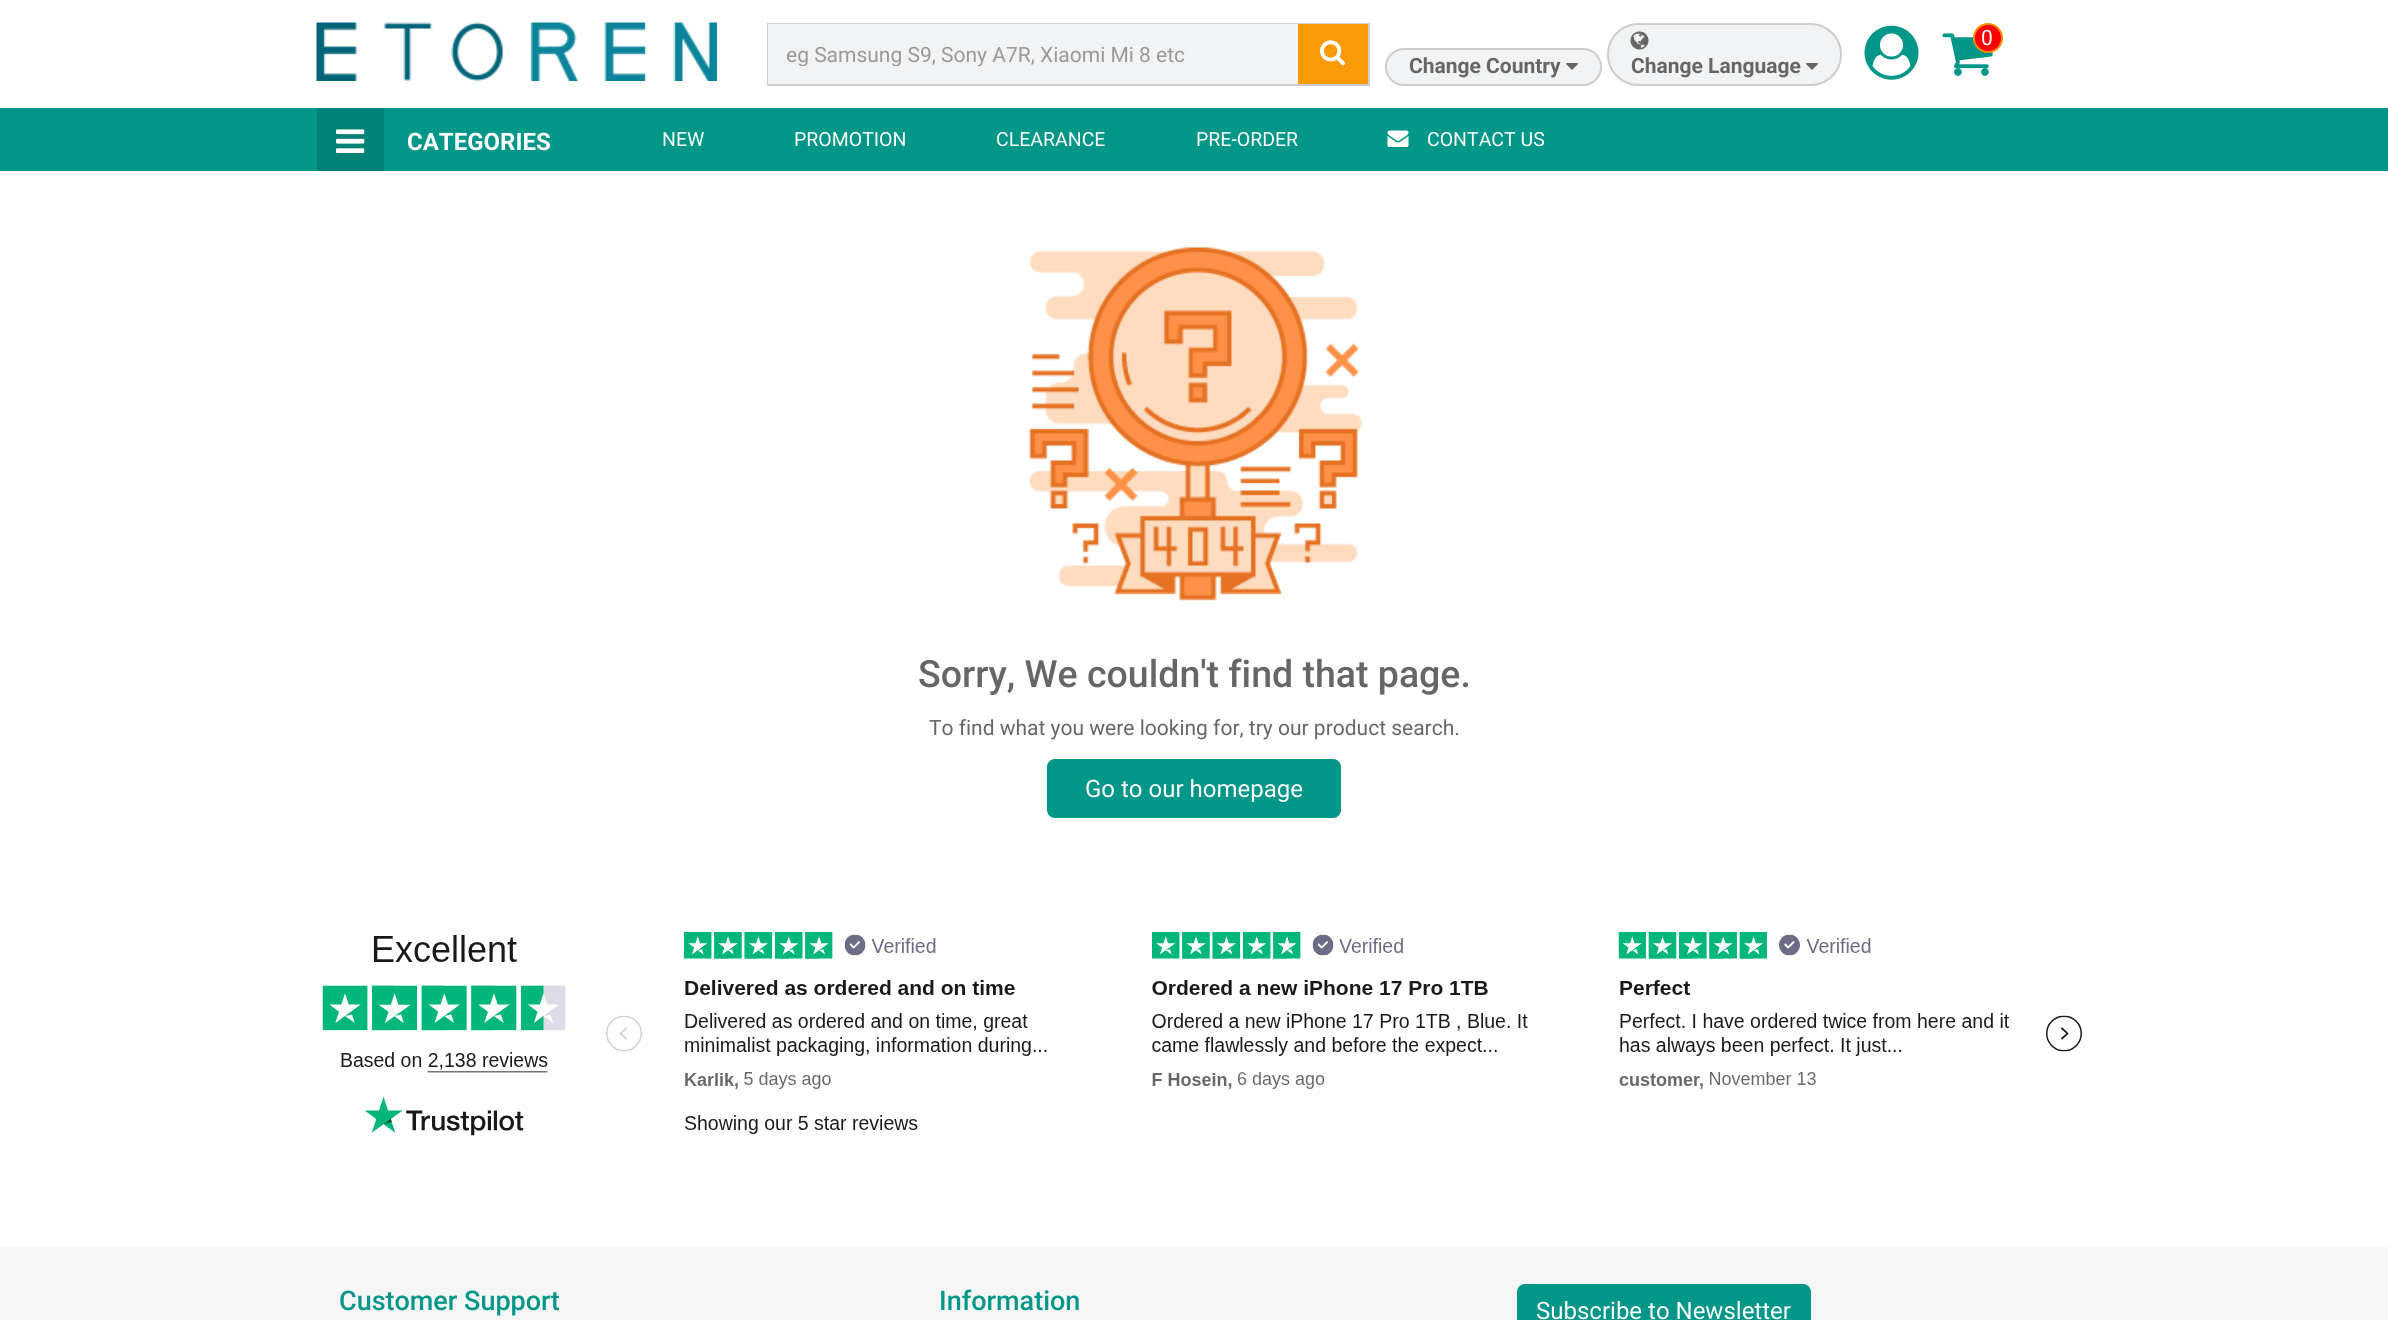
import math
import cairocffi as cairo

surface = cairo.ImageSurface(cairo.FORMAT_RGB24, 2388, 1320)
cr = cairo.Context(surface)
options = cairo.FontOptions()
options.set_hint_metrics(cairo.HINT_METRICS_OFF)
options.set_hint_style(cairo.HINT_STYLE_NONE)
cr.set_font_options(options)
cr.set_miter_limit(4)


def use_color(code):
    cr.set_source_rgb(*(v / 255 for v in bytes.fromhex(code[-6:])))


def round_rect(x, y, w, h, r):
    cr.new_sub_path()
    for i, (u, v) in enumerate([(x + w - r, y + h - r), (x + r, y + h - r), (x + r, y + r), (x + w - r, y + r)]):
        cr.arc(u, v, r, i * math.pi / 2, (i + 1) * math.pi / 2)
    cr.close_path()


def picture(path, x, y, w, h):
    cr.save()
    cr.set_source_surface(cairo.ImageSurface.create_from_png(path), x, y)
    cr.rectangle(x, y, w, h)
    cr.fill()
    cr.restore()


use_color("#ffffff")
cr.paint()
picture("img1.png", 316, 22, 401, 59)
cr.rectangle(768, 24, 601, 61)
use_color("#cdcdcd")
cr.stroke()
use_color("#f1f3f5")
cr.rectangle(768, 24, 530, 60)
cr.fill()
cr.save()
cr.rectangle(786, 42, 495, 24)
cr.clip()
cr.select_font_face("Roboto")
cr.set_font_size(21)
use_color("#999999")
cr.move_to(786, 62)
cr.show_text("eg Samsung S9, Sony A7R, Xiaomi Mi 8 etc")
cr.restore()
use_color("#fb9a07")
cr.rectangle(1298, 24, 70, 60)
cr.fill()
picture("img2.png", 1320, 40, 26, 26)
picture("img3.png", 1864, 25, 55, 55)
picture("img4.png", 1942, 33, 51, 43)
use_color("#ff0000")
cr.arc(1988, 38, 14, 0, 2 * math.pi)
cr.fill_preserve()
use_color("#ff8a00")
cr.stroke()
cr.select_font_face("Roboto")
cr.set_font_size(21)
use_color("#ffffff")
cr.move_to(1981, 45)
cr.show_text("0")
use_color("#f1f3f5")
round_rect(1386, 49, 215, 36, 18)
cr.fill_preserve()
use_color("#cccccc")
cr.stroke()
cr.select_font_face("Roboto", cairo.FONT_SLANT_NORMAL, cairo.FONT_WEIGHT_BOLD)
use_color("#666666")
cr.move_to(1409, 73)
cr.show_text("Change Country")
picture("img5.png", 1566, 63, 12, 7)
use_color("#f1f3f5")
round_rect(1608, 24, 233, 61, 30.5)
cr.fill_preserve()
use_color("#cccccc")
cr.stroke()
picture("img6.png", 1630, 31, 19, 19)
use_color("#666666")
cr.move_to(1631, 73)
cr.show_text("Change Language")
picture("img5.png", 1806, 63, 12, 7)
use_color("#009688")
cr.rectangle(0, 108, 2388, 63)
cr.fill()
use_color("#008175")
cr.rectangle(317, 108, 67, 63)
cr.fill()
picture("img7.png", 336, 129, 29, 24)
cr.set_font_size(24)
use_color("#ffffff")
cr.move_to(407, 150)
cr.show_text("CATEGORIES")
cr.select_font_face("Roboto")
cr.set_font_size(19.5)
cr.move_to(662, 146)
cr.show_text("NEW")
cr.move_to(794, 146)
cr.show_text("PROMOTION")
cr.move_to(996, 146)
cr.show_text("CLEARANCE")
cr.move_to(1196, 146)
cr.show_text("PRE-ORDER")
picture("img8.png", 1387, 130, 22, 17)
cr.move_to(1427, 146)
cr.show_text("CONTACT US")
picture("img9.png", 1028, 247, 335, 354)
cr.select_font_face("Roboto Medium")
cr.set_font_size(37.5)
use_color("#666666")
cr.move_to(918, 687)
cr.show_text("Sorry, We couldn't find that page.")
cr.select_font_face("Roboto")
cr.set_font_size(21)
cr.move_to(929, 735)
cr.show_text("To find what you were looking for, try our product search.")
use_color("#009688")
round_rect(1047, 759, 294, 59, 8)
cr.fill()
cr.set_font_size(24)
use_color("#ffffff")
cr.move_to(1085, 797)
cr.show_text("Go to our homepage")
picture("img10.png", 322, 931, 1760, 205)
use_color("#f6f6f6")
cr.rectangle(0, 1247, 2388, 73)
cr.fill()
cr.select_font_face("Roboto Medium")
cr.set_font_size(27)
use_color("#009688")
cr.move_to(339, 1310)
cr.show_text("Customer Support")
cr.move_to(939, 1310)
cr.show_text("Information")
round_rect(1518, 1285, 292, 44, 7)
cr.fill_preserve()
cr.stroke()
cr.select_font_face("Roboto")
cr.set_font_size(24)
use_color("#ffffff")
cr.move_to(1536, 1319)
cr.show_text("Subscribe to Newsletter")
surface.write_to_png("result.png")
